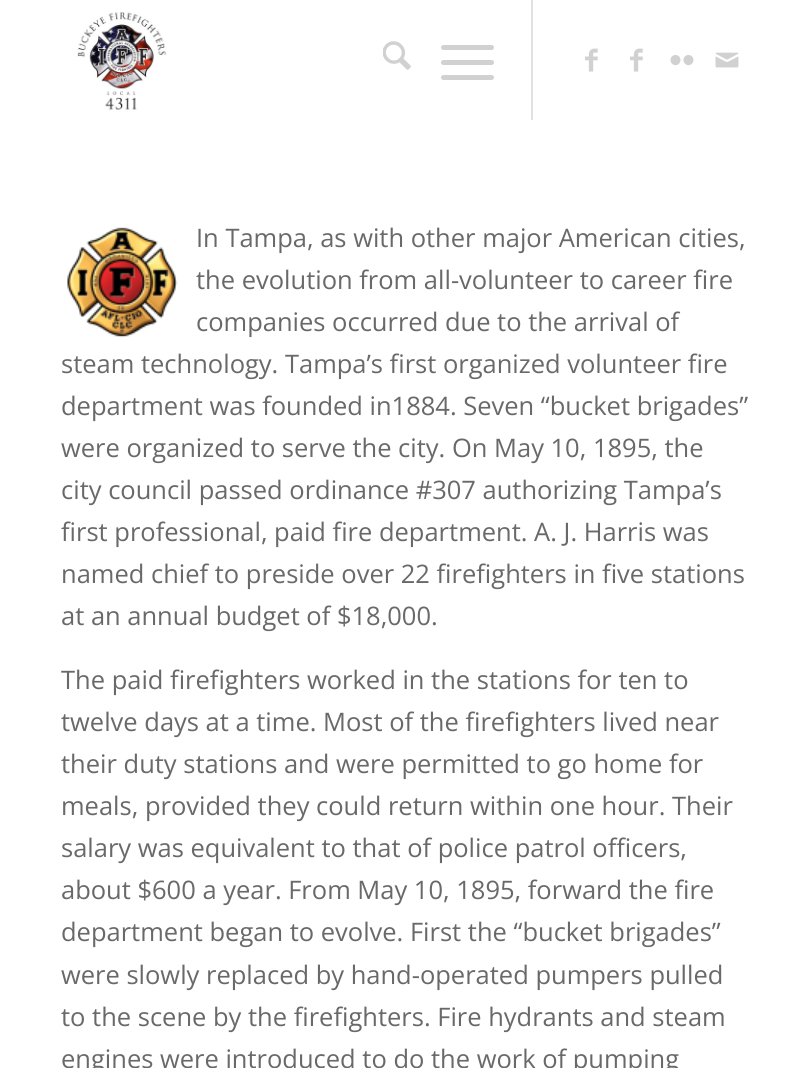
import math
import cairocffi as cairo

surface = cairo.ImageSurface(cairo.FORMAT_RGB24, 810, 1068)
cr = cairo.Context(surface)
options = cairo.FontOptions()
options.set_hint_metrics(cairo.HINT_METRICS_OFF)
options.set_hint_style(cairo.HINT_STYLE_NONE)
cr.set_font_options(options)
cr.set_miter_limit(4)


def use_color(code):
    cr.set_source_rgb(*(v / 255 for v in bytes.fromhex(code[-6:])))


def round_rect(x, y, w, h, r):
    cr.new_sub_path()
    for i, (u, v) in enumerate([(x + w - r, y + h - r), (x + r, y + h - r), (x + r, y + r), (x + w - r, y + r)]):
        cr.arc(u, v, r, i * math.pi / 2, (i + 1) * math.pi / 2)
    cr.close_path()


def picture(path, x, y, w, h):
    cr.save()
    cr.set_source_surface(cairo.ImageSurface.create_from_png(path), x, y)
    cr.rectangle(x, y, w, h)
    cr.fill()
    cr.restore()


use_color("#ffffff")
cr.paint()
picture("img1.png", 77, 12, 90, 98)
use_color("#e1e1e1")
cr.rectangle(531, 0, 2, 120)
cr.fill()
picture("img2.png", 383, 41, 28, 29)
use_color("#d1d1d1")
round_rect(441, 60, 53, 5, 2.5)
cr.fill()
round_rect(441, 45, 53, 5, 2.5)
cr.fill()
round_rect(441, 75, 53, 5, 2.5)
cr.fill()
picture("img3.png", 585, 48, 13, 24)
picture("img3.png", 630, 48, 13, 24)
picture("img4.png", 670, 55, 24, 11)
picture("img5.png", 715, 52, 24, 16)
picture("img6.png", 67, 227, 111, 111)
cr.select_font_face("Open Sans")
cr.set_font_size(25.5)
use_color("#696969")
cr.move_to(196, 247)
cr.show_text("In Tampa, as with other major American cities,")
cr.move_to(196, 289)
cr.show_text("the evolution from all-volunteer to career fire")
cr.move_to(196, 331)
cr.show_text("companies occurred due to the arrival of")
cr.move_to(61, 373)
cr.show_text("steam technology. Tampa’s first organized volunteer fire")
cr.move_to(61, 415)
cr.show_text("department was founded in1884. Seven “bucket brigades”")
cr.move_to(61, 457)
cr.show_text("were organized to serve the city. On May 10, 1895, the")
cr.move_to(61, 499)
cr.show_text("city council passed ordinance #307 authorizing Tampa’s")
cr.move_to(61, 541)
cr.show_text("first professional, paid fire department. A. J. Harris was")
cr.move_to(61, 583)
cr.show_text("named chief to preside over 22 firefighters in five stations")
cr.move_to(61, 625)
cr.show_text("at an annual budget of $18,000.")
cr.move_to(61, 689)
cr.show_text("The paid firefighters worked in the stations for ten to")
cr.move_to(61, 731)
cr.show_text("twelve days at a time. Most of the firefighters lived near")
cr.move_to(61, 773)
cr.show_text("their duty stations and were permitted to go home for")
cr.move_to(61, 815)
cr.show_text("meals, provided they could return within one hour. Their")
cr.move_to(61, 857)
cr.show_text("salary was equivalent to that of police patrol officers,")
cr.move_to(61, 899)
cr.show_text("about $600 a year. From May 10, 1895, forward the fire")
cr.move_to(61, 941)
cr.show_text("department began to evolve. First the “bucket brigades”")
cr.move_to(61, 984)
cr.show_text("were slowly replaced by hand-operated pumpers pulled")
cr.move_to(61, 1026)
cr.show_text("to the scene by the firefighters. Fire hydrants and steam")
cr.move_to(61, 1068)
cr.show_text("engines were introduced to do the work of pumping")
surface.write_to_png("result.png")
